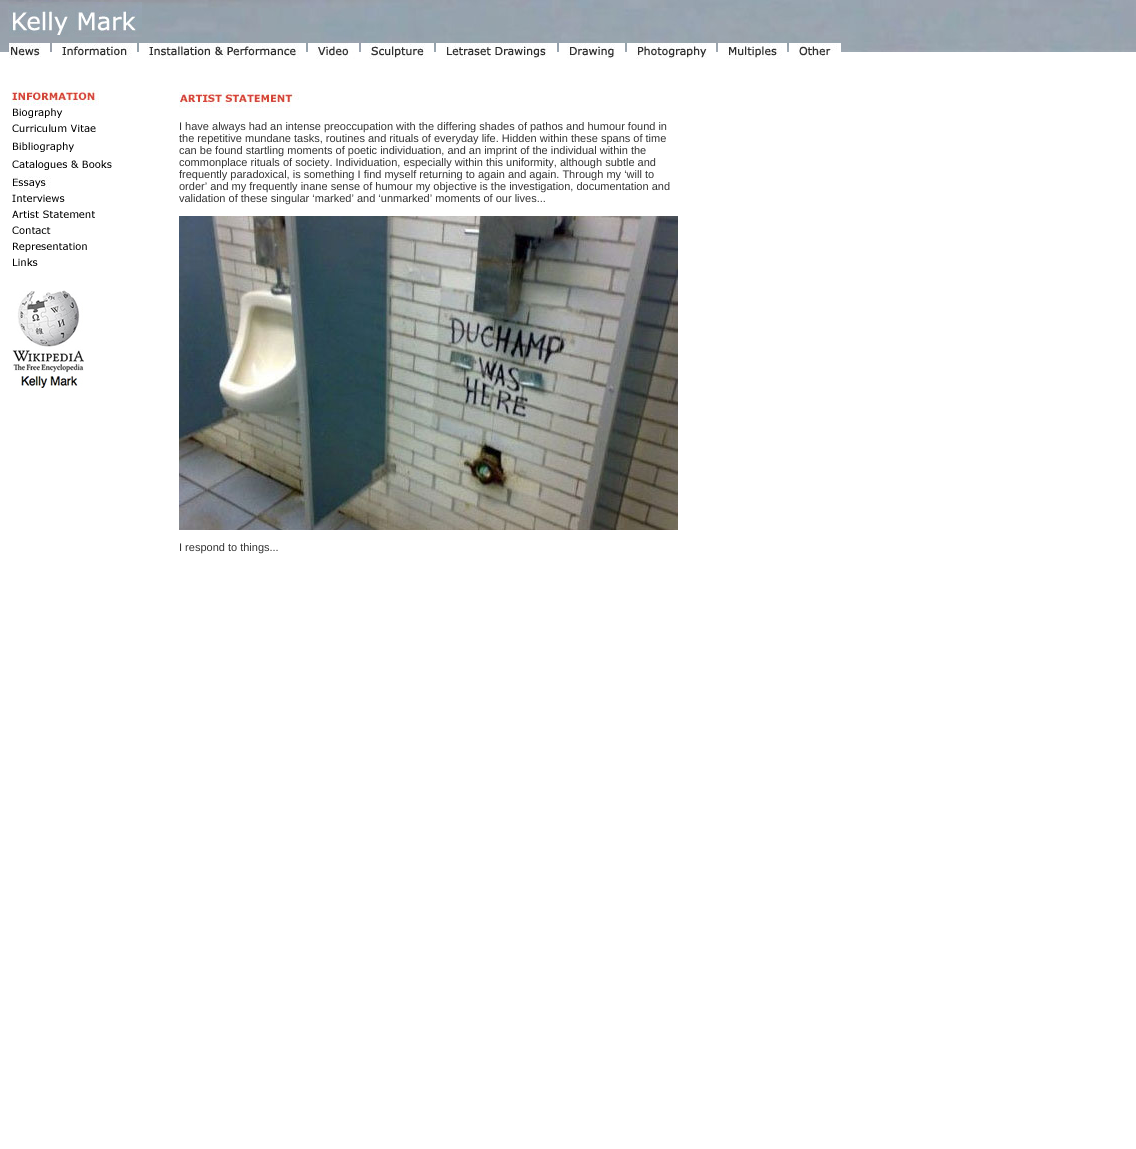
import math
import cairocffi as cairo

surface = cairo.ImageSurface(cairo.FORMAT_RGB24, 1136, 1149)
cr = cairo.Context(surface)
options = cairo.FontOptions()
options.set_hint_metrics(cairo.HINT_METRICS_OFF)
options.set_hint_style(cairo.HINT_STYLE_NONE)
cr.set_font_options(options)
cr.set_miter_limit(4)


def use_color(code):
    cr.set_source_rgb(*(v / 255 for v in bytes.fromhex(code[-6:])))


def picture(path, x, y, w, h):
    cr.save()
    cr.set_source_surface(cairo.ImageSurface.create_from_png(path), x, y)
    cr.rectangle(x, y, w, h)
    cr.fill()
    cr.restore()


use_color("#ffffff")
cr.paint()
picture("img1.png", 0, 0, 1136, 52)
picture("img2.png", 9, 2, 133, 35)
picture("img3.png", 9, 43, 41, 16)
picture("img4.png", 52, 43, 85, 16)
picture("img5.png", 139, 43, 167, 16)
picture("img6.png", 308, 43, 51, 16)
picture("img7.png", 361, 43, 73, 16)
picture("img8.png", 436, 43, 121, 16)
picture("img9.png", 559, 43, 66, 16)
picture("img10.png", 627, 43, 89, 16)
picture("img11.png", 718, 43, 69, 16)
picture("img12.png", 789, 43, 52, 16)
picture("img13.png", 11, 90, 88, 16)
picture("img14.png", 13, 108, 50, 10)
picture("img15.png", 12, 124, 84, 8)
picture("img16.png", 13, 142, 61, 10)
picture("img17.png", 12, 160, 100, 10)
picture("img18.png", 11, 176, 40, 16)
picture("img19.png", 12, 194, 53, 8)
picture("img20.png", 12, 210, 83, 8)
picture("img21.png", 12, 226, 39, 8)
picture("img22.png", 13, 242, 74, 10)
picture("img23.png", 13, 258, 25, 8)
picture("img24.png", 12, 290, 72, 98)
picture("img25.png", 179, 92, 120, 16)
cr.select_font_face("Liberation Sans")
cr.set_font_size(11)
use_color("#333333")
cr.move_to(179, 130)
cr.show_text("I have always had an intense preoccupation with the differing shades of pathos and humour found in")
cr.move_to(179, 142)
cr.show_text("the repetitive mundane tasks, routines and rituals of everyday life. Hidden within these spans of time")
cr.move_to(179, 154)
cr.show_text("can be found startling moments of poetic individuation, and an imprint of the individual within the")
cr.move_to(179, 166)
cr.show_text("commonplace rituals of society. Individuation, especially within this uniformity, although subtle and")
cr.move_to(179, 178)
cr.show_text("frequently paradoxical, is something I find myself returning to again and again. Through my ‘will to")
cr.move_to(179, 190)
cr.show_text("order’ and my frequently inane sense of humour my objective is the investigation, documentation and")
cr.move_to(179, 202)
cr.show_text("validation of these singular ‘marked’ and ‘unmarked’ moments of our lives...")
picture("img26.png", 179, 216, 499, 314)
cr.move_to(179, 551)
cr.show_text("I respond to things...")
surface.write_to_png("result.png")
